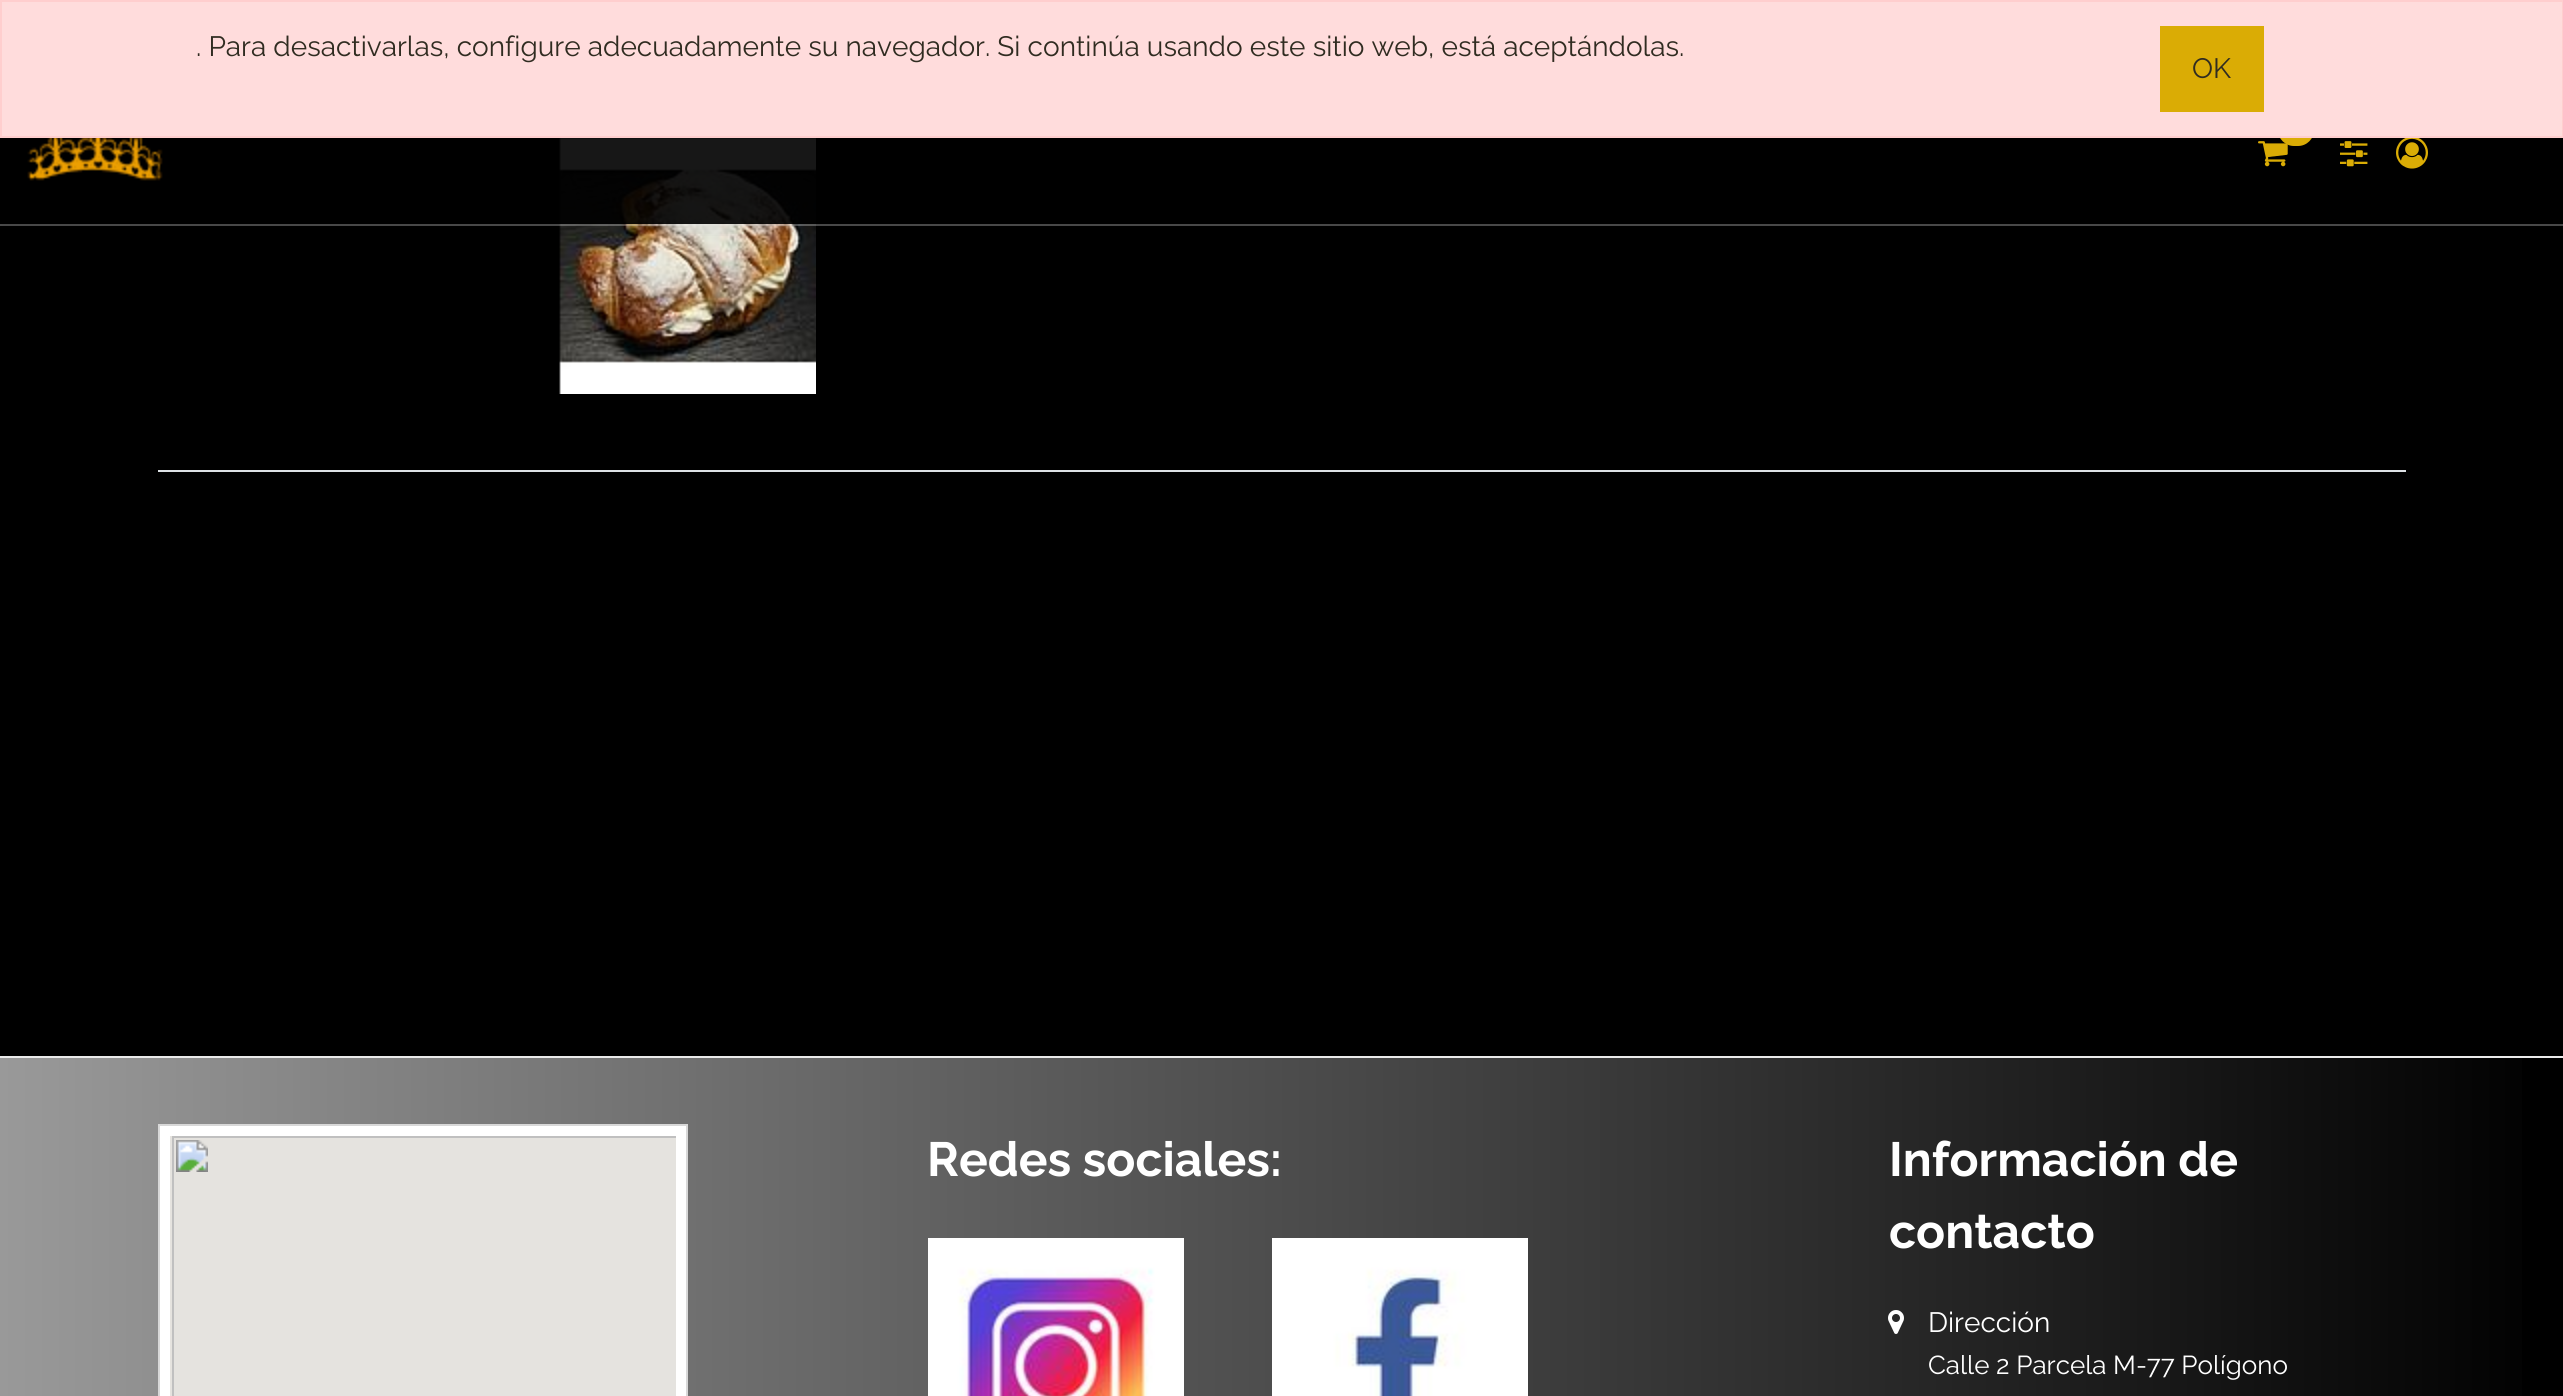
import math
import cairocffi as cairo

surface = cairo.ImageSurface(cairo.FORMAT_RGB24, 2563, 1396)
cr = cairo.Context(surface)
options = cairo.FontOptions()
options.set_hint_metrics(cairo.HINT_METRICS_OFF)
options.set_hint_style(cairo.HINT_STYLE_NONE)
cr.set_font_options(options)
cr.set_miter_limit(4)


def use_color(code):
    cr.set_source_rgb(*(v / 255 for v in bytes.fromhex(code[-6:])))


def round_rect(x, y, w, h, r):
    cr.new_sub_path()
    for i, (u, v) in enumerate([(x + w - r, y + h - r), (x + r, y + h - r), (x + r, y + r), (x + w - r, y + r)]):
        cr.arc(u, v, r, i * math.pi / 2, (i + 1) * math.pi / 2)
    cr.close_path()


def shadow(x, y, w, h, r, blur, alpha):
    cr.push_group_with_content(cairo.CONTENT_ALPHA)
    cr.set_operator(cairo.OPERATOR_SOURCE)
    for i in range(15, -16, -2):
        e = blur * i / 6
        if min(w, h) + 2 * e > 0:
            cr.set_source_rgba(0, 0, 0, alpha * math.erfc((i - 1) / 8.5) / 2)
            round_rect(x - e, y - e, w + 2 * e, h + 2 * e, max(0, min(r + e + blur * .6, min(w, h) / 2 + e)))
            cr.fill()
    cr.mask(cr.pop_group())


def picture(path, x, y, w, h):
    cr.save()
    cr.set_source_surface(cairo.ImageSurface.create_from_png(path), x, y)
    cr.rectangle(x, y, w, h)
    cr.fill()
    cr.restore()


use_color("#000000")
cr.paint()
picture("img5.png", 559, 138, 257, 256)
cr.set_source_rgba(1, 1, 1, 0.3)
cr.rectangle(0, 224, 2563, 2)
cr.fill()
cr.save()
cr.rectangle(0, 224, 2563, 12)
cr.clip()
use_color("#000000")
shadow(0, 84, 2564, 140, 0, 12, 0.12)
cr.restore()
picture("img2.png", 2258, 141, 30, 26)
use_color("#daac05")
round_rect(2278, 114, 36, 32, 16)
cr.fill()
use_color("#ffdcdc")
cr.rectangle(1, 1, 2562, 136)
cr.fill_preserve()
use_color("#ffcece")
cr.stroke()
cr.select_font_face("Raleway")
cr.set_font_size(28)
use_color("#302c21")
cr.move_to(196, 56)
cr.show_text(". Para desactivarlas, configure adecuadamente su navegador. Si continúa usando este sitio web, está aceptándolas.")
use_color("#daac05")
cr.rectangle(2160, 26, 104, 86)
cr.fill()
use_color("#302c21")
cr.move_to(2192, 78)
cr.show_text("OK")
cr.set_source_rgba(0, 0, 0, 0.91)
cr.rectangle(559, 138, 257, 86)
cr.fill()
picture("img1.png", 27, 138, 136, 43)
picture("img3.png", 2340, 141, 28, 26)
picture("img4.png", 2396, 138, 32, 31)
use_color("#dee2e6")
cr.rectangle(158, 470, 2248, 2)
cr.fill()
gradient = cairo.LinearGradient(0, 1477, 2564, 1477)
gradient.add_color_stop_rgba(0, 0.6, 0.6, 0.6, 1)
gradient.add_color_stop_rgba(1, 0, 0, 0, 1)
cr.set_source(gradient)
cr.rectangle(0, 1058, 2522, 338)
cr.fill()
use_color("#eaeaea")
cr.rectangle(0, 1056, 2563, 2)
cr.fill()
use_color("#ffffff")
cr.rectangle(159, 1125, 528, 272)
cr.fill_preserve()
use_color("#d8d8d8")
cr.stroke()
picture("img6.png", 170, 1136, 506, 260)
cr.select_font_face("Raleway", cairo.FONT_SLANT_NORMAL, cairo.FONT_WEIGHT_BOLD)
cr.set_font_size(48)
use_color("#ffffff")
cr.move_to(927, 1176)
cr.show_text("Redes sociales:")
picture("img7.png", 928, 1238, 256, 158)
picture("img8.png", 1272, 1238, 256, 158)
cr.move_to(1889, 1176)
cr.show_text("Información de")
cr.move_to(1889, 1248)
cr.show_text("contacto")
picture("img9.png", 1888, 1310, 16, 24)
cr.select_font_face("Raleway")
cr.set_font_size(28)
cr.move_to(1928, 1332)
cr.show_text("Dirección")
cr.set_font_size(26)
cr.move_to(1928, 1374)
cr.show_text("Calle 2 Parcela M-77 Polígono")
surface.write_to_png("result.png")
